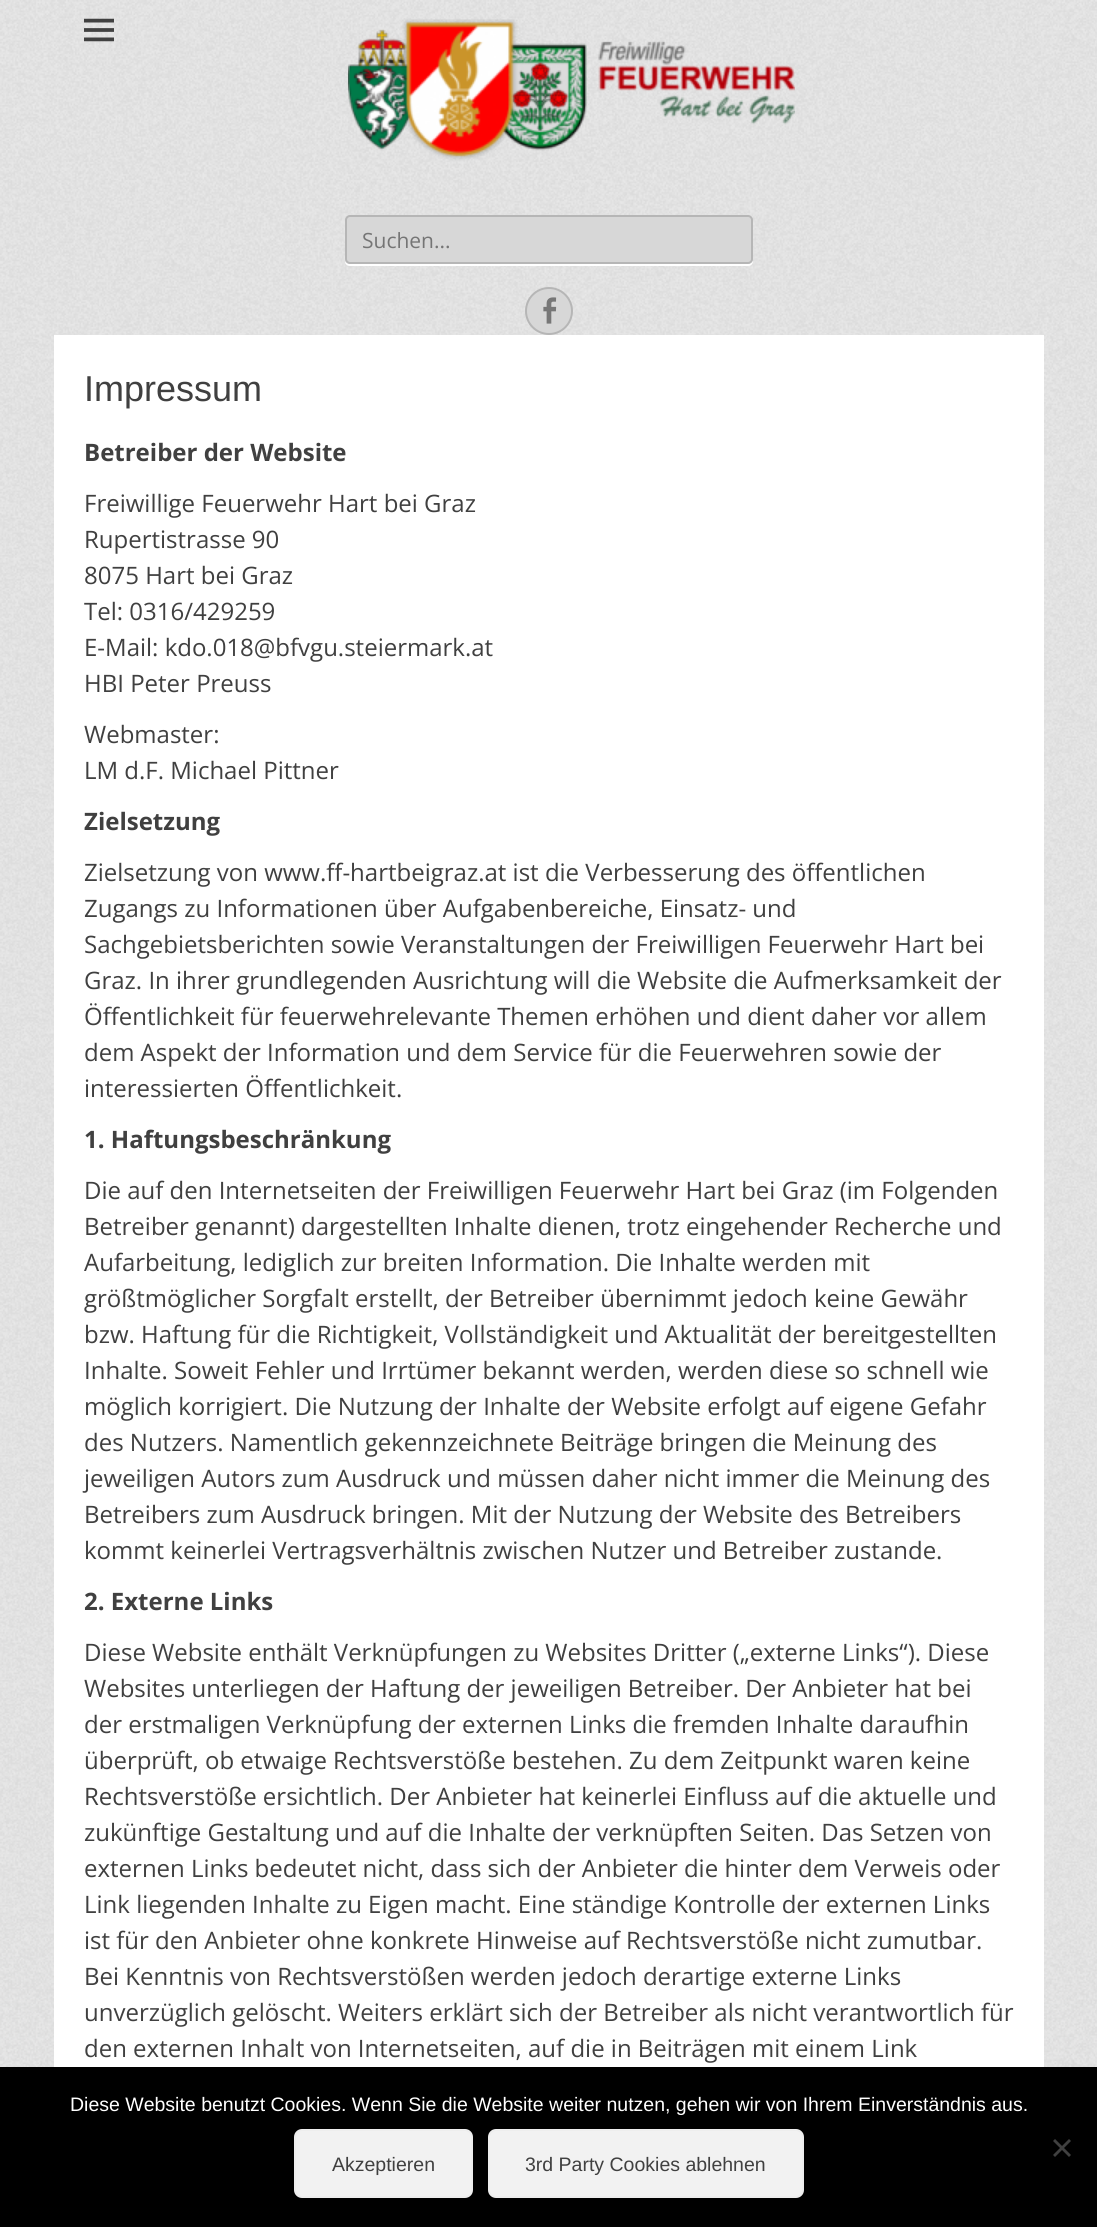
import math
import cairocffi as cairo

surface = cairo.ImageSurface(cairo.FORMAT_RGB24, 1097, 2227)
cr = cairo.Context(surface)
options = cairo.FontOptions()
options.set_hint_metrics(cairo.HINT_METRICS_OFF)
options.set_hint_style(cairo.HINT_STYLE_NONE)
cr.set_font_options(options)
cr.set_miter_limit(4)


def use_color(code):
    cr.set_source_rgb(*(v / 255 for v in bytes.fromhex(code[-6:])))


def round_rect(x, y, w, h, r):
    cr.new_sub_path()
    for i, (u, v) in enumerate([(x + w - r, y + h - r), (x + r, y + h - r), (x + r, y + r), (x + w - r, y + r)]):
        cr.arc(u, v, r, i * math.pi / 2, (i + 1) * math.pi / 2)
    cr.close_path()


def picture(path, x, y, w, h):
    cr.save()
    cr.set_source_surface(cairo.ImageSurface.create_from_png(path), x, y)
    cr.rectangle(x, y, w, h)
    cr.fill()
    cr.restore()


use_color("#ffffff")
cr.paint()
picture("img1.png", 0, 0, 1097, 2067)
picture("img2.png", 84, 18, 30, 24)
picture("img3.png", 348, 19, 447, 142)
use_color("#ffffff")
cr.new_path()
cr.move_to(345, 260)
cr.line_to(345, 261)
cr.curve_to(345, 264, 347, 266, 350, 266)
cr.line_to(748, 266)
cr.curve_to(751, 266, 753, 264, 753, 261)
cr.line_to(753, 260)
cr.curve_to(753, 262, 751, 264, 748, 264)
cr.line_to(350, 264)
cr.curve_to(347, 264, 345, 262, 345, 260)
cr.close_path()
cr.fill()
use_color("#d7d7d7")
round_rect(346, 216, 406, 47, 4)
cr.fill_preserve()
use_color("#b6b6b6")
cr.stroke()
cr.select_font_face("Open Sans")
cr.set_font_size(21)
use_color("#757575")
cr.move_to(362, 248)
cr.show_text("Suchen...")
use_color("#d7d7d7")
cr.new_path()
cr.arc(549, 311, 23, 0, 2 * math.pi)
cr.fill_preserve()
use_color("#b6b6b6")
cr.stroke()
picture("img4.png", 543, 297, 14, 27)
use_color("#ffffff")
cr.rectangle(54, 335, 990, 1732)
cr.fill()
cr.select_font_face("Liberation Sans")
cr.set_font_size(36)
use_color("#404040")
cr.move_to(84, 401)
cr.show_text("Impressum")
cr.select_font_face("Open Sans", cairo.FONT_SLANT_NORMAL, cairo.FONT_WEIGHT_BOLD)
cr.set_font_size(24)
cr.move_to(84, 461)
cr.show_text("Betreiber der Website")
cr.select_font_face("Open Sans")
cr.move_to(84, 512)
cr.show_text("Freiwillige Feuerwehr Hart bei Graz")
cr.move_to(84, 548)
cr.show_text("Rupertistrasse 90")
cr.move_to(84, 584)
cr.show_text("8075 Hart bei Graz")
cr.move_to(84, 620)
cr.show_text("Tel: 0316/429259")
cr.move_to(84, 656)
cr.show_text("E-Mail: kdo.018@bfvgu.steiermark.at")
cr.move_to(84, 692)
cr.show_text("HBI Peter Preuss")
cr.move_to(84, 743)
cr.show_text("Webmaster:")
cr.move_to(84, 779)
cr.show_text("LM d.F. Michael Pittner")
cr.select_font_face("Open Sans", cairo.FONT_SLANT_NORMAL, cairo.FONT_WEIGHT_BOLD)
cr.move_to(84, 830)
cr.show_text("Zielsetzung")
cr.select_font_face("Open Sans")
cr.move_to(84, 881)
cr.show_text("Zielsetzung von www.ff-hartbeigraz.at ist die Verbesserung des öffentlichen")
cr.move_to(84, 917)
cr.show_text("Zugangs zu Informationen über Aufgabenbereiche, Einsatz- und")
cr.move_to(84, 953)
cr.show_text("Sachgebietsberichten sowie Veranstaltungen der Freiwilligen Feuerwehr Hart bei")
cr.move_to(84, 989)
cr.show_text("Graz. In ihrer grundlegenden Ausrichtung will die Website die Aufmerksamkeit der")
cr.move_to(84, 1025)
cr.show_text("Öffentlichkeit für feuerwehrelevante Themen erhöhen und dient daher vor allem")
cr.move_to(84, 1061)
cr.show_text("dem Aspekt der Information und dem Service für die Feuerwehren sowie der")
cr.move_to(84, 1097)
cr.show_text("interessierten Öffentlichkeit.")
cr.select_font_face("Open Sans", cairo.FONT_SLANT_NORMAL, cairo.FONT_WEIGHT_BOLD)
cr.move_to(84, 1148)
cr.show_text("1. Haftungsbeschränkung")
cr.select_font_face("Open Sans")
cr.move_to(84, 1199)
cr.show_text("Die auf den Internetseiten der Freiwilligen Feuerwehr Hart bei Graz (im Folgenden")
cr.move_to(84, 1235)
cr.show_text("Betreiber genannt) dargestellten Inhalte dienen, trotz eingehender Recherche und")
cr.move_to(84, 1271)
cr.show_text("Aufarbeitung, lediglich zur breiten Information. Die Inhalte werden mit")
cr.move_to(84, 1307)
cr.show_text("größtmöglicher Sorgfalt erstellt, der Betreiber übernimmt jedoch keine Gewähr")
cr.move_to(84, 1343)
cr.show_text("bzw. Haftung für die Richtigkeit, Vollständigkeit und Aktualität der bereitgestellten")
cr.move_to(84, 1379)
cr.show_text("Inhalte. Soweit Fehler und Irrtümer bekannt werden, werden diese so schnell wie")
cr.move_to(84, 1415)
cr.show_text("möglich korrigiert. Die Nutzung der Inhalte der Website erfolgt auf eigene Gefahr")
cr.move_to(84, 1451)
cr.show_text("des Nutzers. Namentlich gekennzeichnete Beiträge bringen die Meinung des")
cr.move_to(84, 1487)
cr.show_text("jeweiligen Autors zum Ausdruck und müssen daher nicht immer die Meinung des")
cr.move_to(84, 1523)
cr.show_text("Betreibers zum Ausdruck bringen. Mit der Nutzung der Website des Betreibers")
cr.move_to(84, 1559)
cr.show_text("kommt keinerlei Vertragsverhältnis zwischen Nutzer und Betreiber zustande.")
cr.select_font_face("Open Sans", cairo.FONT_SLANT_NORMAL, cairo.FONT_WEIGHT_BOLD)
cr.move_to(84, 1610)
cr.show_text("2. Externe Links")
cr.select_font_face("Open Sans")
cr.move_to(84, 1661)
cr.show_text("Diese Website enthält Verknüpfungen zu Websites Dritter („externe Links“). Diese")
cr.move_to(84, 1697)
cr.show_text("Websites unterliegen der Haftung der jeweiligen Betreiber. Der Anbieter hat bei")
cr.move_to(84, 1733)
cr.show_text("der erstmaligen Verknüpfung der externen Links die fremden Inhalte daraufhin")
cr.move_to(84, 1769)
cr.show_text("überprüft, ob etwaige Rechtsverstöße bestehen. Zu dem Zeitpunkt waren keine")
cr.move_to(84, 1805)
cr.show_text("Rechtsverstöße ersichtlich. Der Anbieter hat keinerlei Einfluss auf die aktuelle und")
cr.move_to(84, 1841)
cr.show_text("zukünftige Gestaltung und auf die Inhalte der verknüpften Seiten. Das Setzen von")
cr.move_to(84, 1877)
cr.show_text("externen Links bedeutet nicht, dass sich der Anbieter die hinter dem Verweis oder")
cr.move_to(84, 1913)
cr.show_text("Link liegenden Inhalte zu Eigen macht. Eine ständige Kontrolle der externen Links")
cr.move_to(84, 1949)
cr.show_text("ist für den Anbieter ohne konkrete Hinweise auf Rechtsverstöße nicht zumutbar.")
cr.move_to(84, 1985)
cr.show_text("Bei Kenntnis von Rechtsverstößen werden jedoch derartige externe Links")
cr.move_to(84, 2021)
cr.show_text("unverzüglich gelöscht. Weiters erklärt sich der Betreiber als nicht verantwortlich für")
cr.move_to(84, 2057)
cr.show_text("den externen Inhalt von Internetseiten, auf die in Beiträgen mit einem Link")
use_color("#000000")
cr.rectangle(0, 2067, 1097, 160)
cr.fill()
cr.select_font_face("Liberation Sans")
cr.set_font_size(19.5)
use_color("#ffffff")
cr.move_to(70, 2111)
cr.show_text("Diese Website benutzt Cookies. Wenn Sie die Website weiter nutzen, gehen wir von Ihrem Einverständnis aus.")
use_color("#404040")
cr.new_path()
cr.move_to(1069, 2139)
cr.line_to(1071, 2141)
cr.line_to(1055, 2157)
cr.line_to(1053, 2155)
cr.close_path()
cr.fill()
cr.new_path()
cr.move_to(1053, 2141)
cr.line_to(1055, 2139)
cr.line_to(1071, 2155)
cr.line_to(1069, 2157)
cr.close_path()
cr.fill()
use_color("#f2f2f2")
round_rect(295, 2130, 177, 67, 7)
cr.fill_preserve()
use_color("#eeeeee")
cr.stroke()
use_color("#404040")
cr.move_to(332, 2171)
cr.show_text("Akzeptieren")
use_color("#f2f2f2")
round_rect(489, 2130, 314, 67, 7)
cr.fill_preserve()
use_color("#eeeeee")
cr.stroke()
use_color("#404040")
cr.move_to(525, 2171)
cr.show_text("3rd Party Cookies ablehnen")
surface.write_to_png("result.png")
